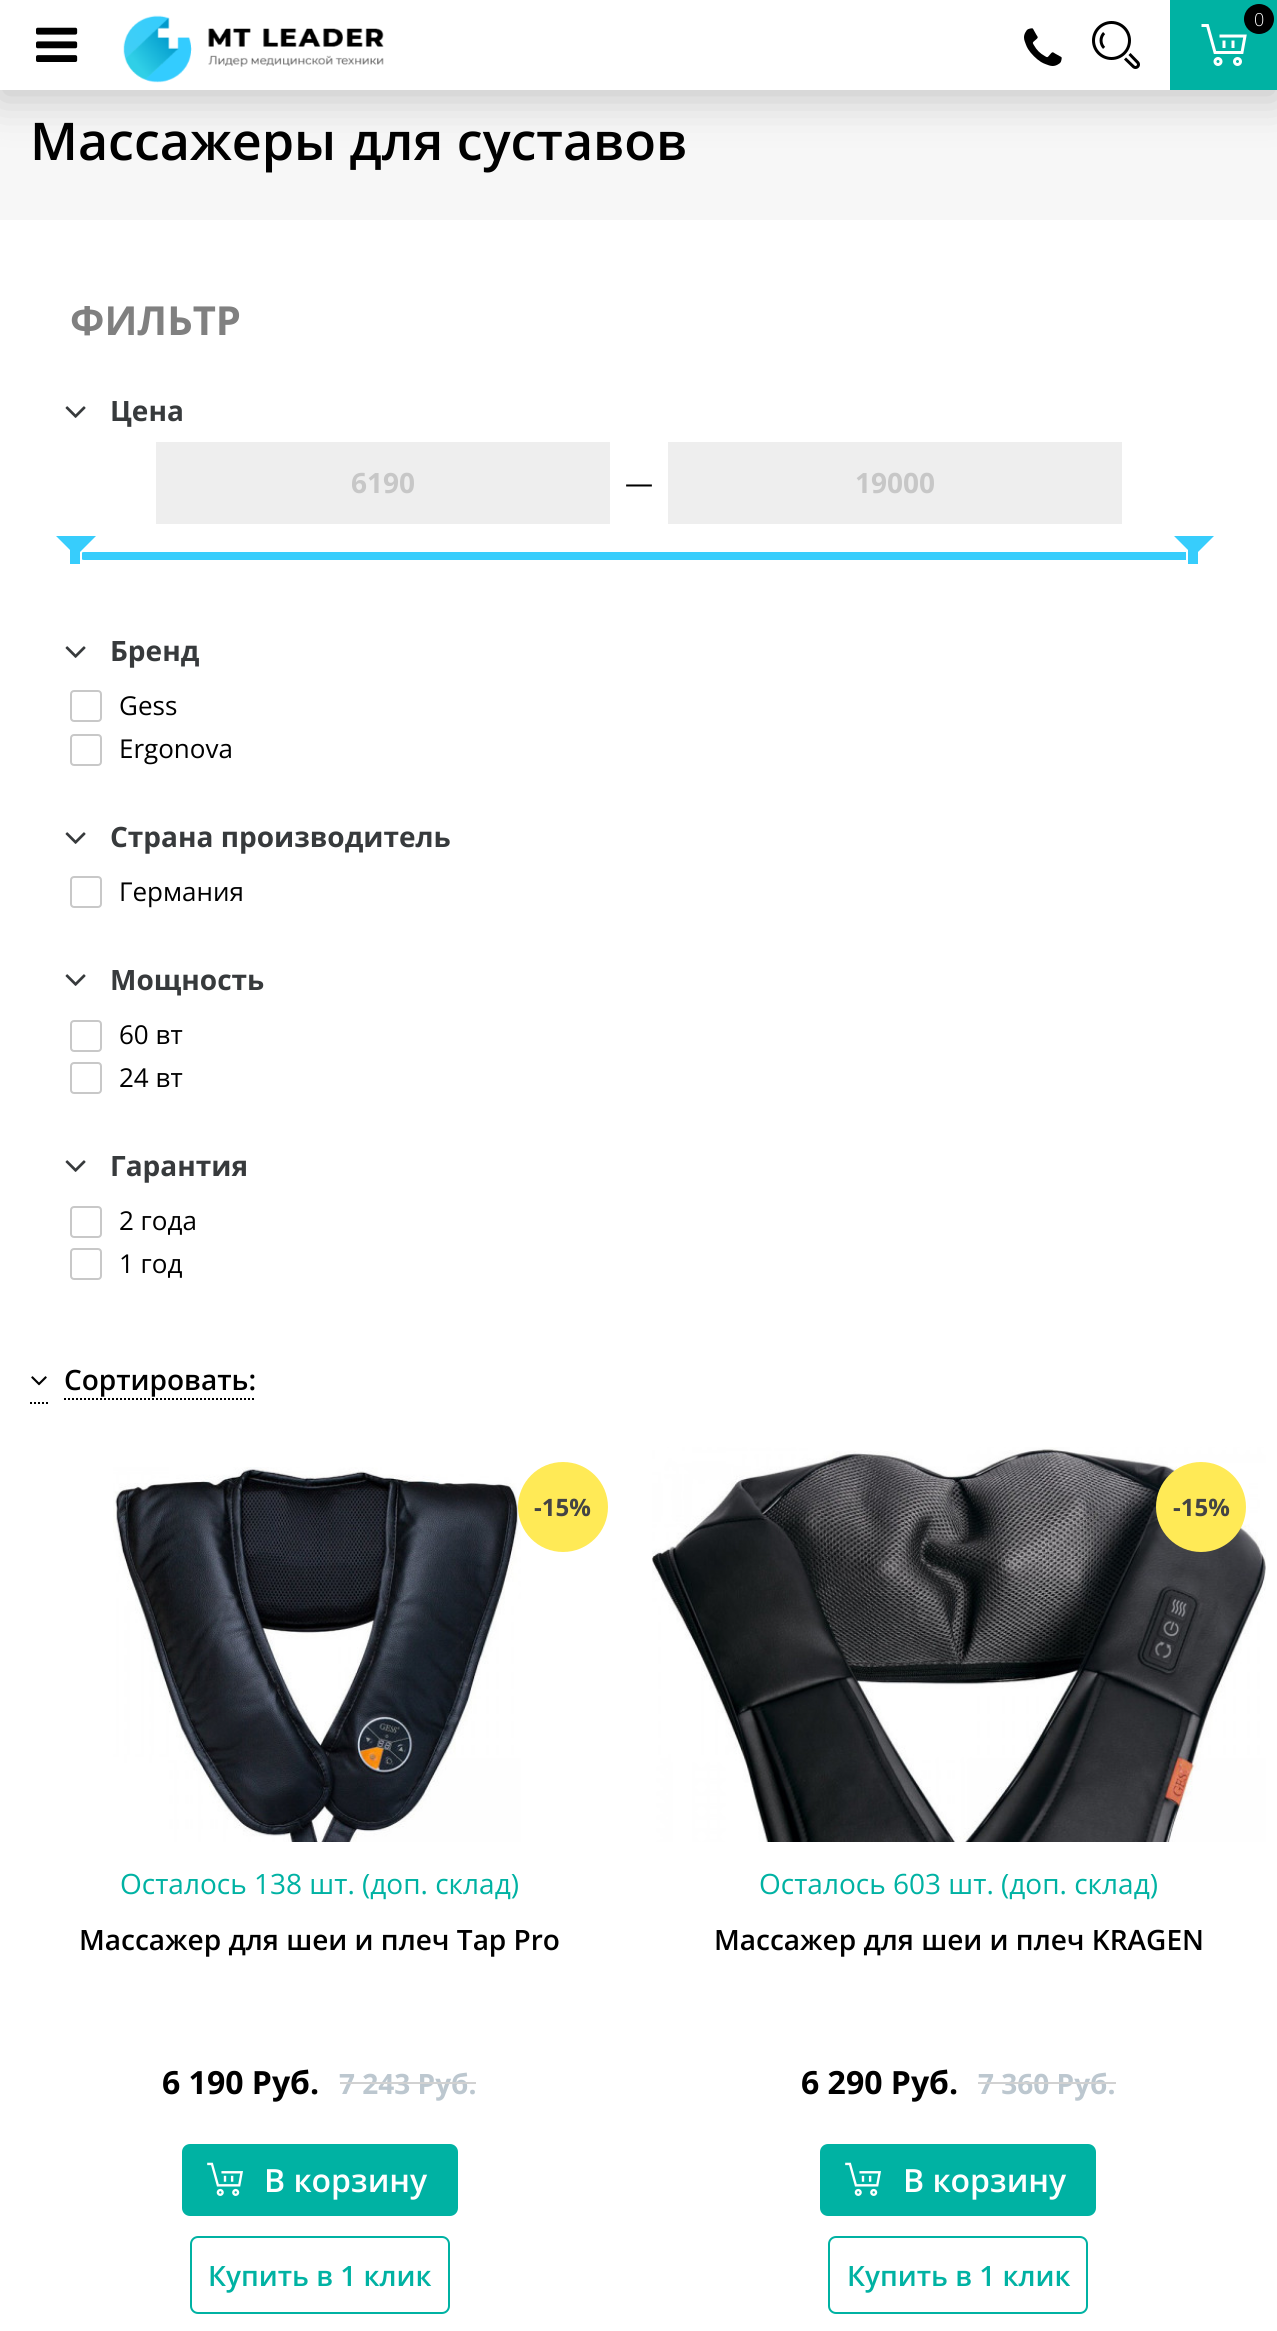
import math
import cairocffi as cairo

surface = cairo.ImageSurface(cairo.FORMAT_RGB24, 1277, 2331)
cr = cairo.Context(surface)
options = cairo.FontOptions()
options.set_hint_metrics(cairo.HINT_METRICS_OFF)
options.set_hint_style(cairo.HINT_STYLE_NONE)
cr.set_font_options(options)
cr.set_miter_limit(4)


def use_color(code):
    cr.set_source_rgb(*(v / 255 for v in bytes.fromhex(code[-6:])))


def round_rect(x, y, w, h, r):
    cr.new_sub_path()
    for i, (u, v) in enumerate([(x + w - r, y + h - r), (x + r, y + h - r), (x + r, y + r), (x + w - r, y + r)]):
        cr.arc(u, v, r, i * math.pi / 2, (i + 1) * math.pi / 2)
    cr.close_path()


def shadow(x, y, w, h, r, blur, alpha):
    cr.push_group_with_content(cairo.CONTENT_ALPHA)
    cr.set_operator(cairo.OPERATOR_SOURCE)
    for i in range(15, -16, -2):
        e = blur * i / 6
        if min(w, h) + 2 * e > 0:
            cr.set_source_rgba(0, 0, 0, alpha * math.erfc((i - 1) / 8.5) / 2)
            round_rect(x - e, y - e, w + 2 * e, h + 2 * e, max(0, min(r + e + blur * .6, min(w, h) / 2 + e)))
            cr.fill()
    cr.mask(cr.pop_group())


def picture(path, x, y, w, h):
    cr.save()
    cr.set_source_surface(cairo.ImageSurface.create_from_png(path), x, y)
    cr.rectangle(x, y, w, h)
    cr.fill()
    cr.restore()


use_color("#ffffff")
cr.paint()
use_color("#f7f7f7")
cr.rectangle(0, 90, 1277, 130)
cr.fill()
use_color("#000000")
shadow(-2, 6, 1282, 94, 0, 22, 0.2)
use_color("#ffffff")
cr.rectangle(0, 0, 1170, 90)
cr.fill()
picture("img1.png", 36, 27, 42, 35)
picture("img2.png", 123, 15, 261, 68)
use_color("#00b2a3")
cr.rectangle(1170, 0, 107, 90)
cr.fill()
picture("img3.png", 1201, 24, 46, 42)
use_color("#000000")
cr.arc(1259, 19, 15, 0, 2 * math.pi)
cr.fill()
cr.select_font_face("Open Sans Light")
cr.set_font_size(18)
use_color("#ffffff")
cr.move_to(1254, 26)
cr.show_text("0")
picture("img4.png", 1024, 28, 38, 38)
picture("img5.png", 1092, 21, 48, 48)
cr.select_font_face("Open Sans SemiBold")
cr.set_font_size(52)
use_color("#000000")
cr.move_to(30, 160)
cr.show_text("Массажеры для суставов")
cr.select_font_face("Open Sans", cairo.FONT_SLANT_NORMAL, cairo.FONT_WEIGHT_BOLD)
cr.set_font_size(40)
use_color("#808080")
cr.move_to(70, 335)
cr.show_text("ФИЛЬТР")
picture("img6.png", 65, 406, 21, 12)
cr.set_font_size(28)
use_color("#373a3c")
cr.move_to(110, 421)
cr.show_text("Цена")
use_color("#eeeeee")
cr.rectangle(156, 442, 454, 82)
cr.fill()
use_color("#c7c7c7")
cr.move_to(351, 493)
cr.show_text("6190")
cr.select_font_face("Open Sans")
use_color("#000000")
cr.move_to(625, 493)
cr.show_text("—")
use_color("#eeeeee")
cr.rectangle(668, 442, 454, 82)
cr.fill()
cr.select_font_face("Open Sans", cairo.FONT_SLANT_NORMAL, cairo.FONT_WEIGHT_BOLD)
use_color("#c7c7c7")
cr.move_to(855, 493)
cr.show_text("19000")
use_color("#37cdfc")
cr.rectangle(70, 550, 10, 14)
cr.fill()
round_rect(80, 552, 1118, 8, 4)
cr.fill()
cr.rectangle(69, 539, 12, 26)
use_color("#ffffff")
cr.stroke()
use_color("#37cdfc")
cr.new_path()
cr.move_to(56, 536)
cr.line_to(96, 536)
cr.line_to(76, 556)
cr.close_path()
cr.fill()
cr.rectangle(1188, 550, 10, 14)
cr.fill()
cr.rectangle(1187, 539, 12, 26)
use_color("#ffffff")
cr.stroke()
use_color("#37cdfc")
cr.new_path()
cr.move_to(1174, 536)
cr.line_to(1214, 536)
cr.line_to(1194, 556)
cr.close_path()
cr.fill()
picture("img6.png", 65, 646, 21, 12)
use_color("#373a3c")
cr.move_to(110, 661)
cr.show_text("Бренд")
round_rect(71, 691, 30, 30, 3)
use_color("#c8c8c8")
cr.stroke()
cr.select_font_face("Open Sans")
cr.set_font_size(26)
use_color("#000000")
cr.move_to(119, 715)
cr.show_text("Gess")
round_rect(71, 735, 30, 30, 3)
use_color("#c8c8c8")
cr.stroke()
use_color("#000000")
cr.move_to(119, 758)
cr.show_text("Ergonova")
picture("img6.png", 65, 832, 21, 12)
cr.select_font_face("Open Sans", cairo.FONT_SLANT_NORMAL, cairo.FONT_WEIGHT_BOLD)
cr.set_font_size(28)
use_color("#373a3c")
cr.move_to(110, 847)
cr.show_text("Страна производитель")
round_rect(71, 877, 30, 30, 3)
use_color("#c8c8c8")
cr.stroke()
cr.select_font_face("Open Sans")
cr.set_font_size(26)
use_color("#000000")
cr.move_to(119, 901)
cr.show_text("Германия")
picture("img6.png", 65, 974, 21, 12)
cr.select_font_face("Open Sans", cairo.FONT_SLANT_NORMAL, cairo.FONT_WEIGHT_BOLD)
cr.set_font_size(28)
use_color("#373a3c")
cr.move_to(110, 990)
cr.show_text("Мощность")
round_rect(71, 1021, 30, 30, 3)
use_color("#c8c8c8")
cr.stroke()
cr.select_font_face("Open Sans")
cr.set_font_size(26)
use_color("#000000")
cr.move_to(119, 1044)
cr.show_text("60 вт")
round_rect(71, 1063, 30, 30, 3)
use_color("#c8c8c8")
cr.stroke()
use_color("#000000")
cr.move_to(119, 1087)
cr.show_text("24 вт")
picture("img6.png", 65, 1160, 21, 12)
cr.select_font_face("Open Sans", cairo.FONT_SLANT_NORMAL, cairo.FONT_WEIGHT_BOLD)
cr.set_font_size(28)
use_color("#373a3c")
cr.move_to(110, 1176)
cr.show_text("Гарантия")
round_rect(71, 1207, 30, 30, 3)
use_color("#c8c8c8")
cr.stroke()
cr.select_font_face("Open Sans")
cr.set_font_size(26)
use_color("#000000")
cr.move_to(119, 1230)
cr.show_text("2 года")
round_rect(71, 1249, 30, 30, 3)
use_color("#c8c8c8")
cr.stroke()
use_color("#000000")
cr.move_to(119, 1273)
cr.show_text("1 год")
cr.new_path()
cr.move_to(64, 1399)
cr.line_to(256, 1399)
cr.set_dash([2, 2])
cr.stroke()
cr.new_path()
cr.move_to(30, 1403)
cr.line_to(48, 1403)
cr.stroke()
picture("img7.png", 31, 1376, 16, 10)
cr.select_font_face("Open Sans SemiBold")
cr.set_font_size(28)
cr.move_to(64, 1390)
cr.show_text("Сортировать:")
picture("img8.png", 113, 1467, 408, 375)
use_color("#ffea56")
cr.arc(563, 1507, 45, 0, 2 * math.pi)
cr.fill()
cr.select_font_face("Open Sans", cairo.FONT_SLANT_NORMAL, cairo.FONT_WEIGHT_BOLD)
cr.set_font_size(24)
use_color("#444444")
cr.move_to(534, 1516)
cr.show_text("-15%")
cr.select_font_face("Open Sans")
cr.set_font_size(28)
use_color("#00b2a3")
cr.move_to(120, 1894)
cr.show_text("Осталось 138 шт. (доп. склад)")
cr.select_font_face("Open Sans SemiBold")
use_color("#000000")
cr.move_to(79, 1950)
cr.show_text("Массажер для шеи и плеч Tap Pro")
cr.select_font_face("Open Sans", cairo.FONT_SLANT_NORMAL, cairo.FONT_WEIGHT_BOLD)
cr.set_font_size(32)
cr.move_to(162, 2094)
cr.show_text("6 190 Руб.")
cr.set_font_size(28)
use_color("#bcc7cf")
cr.move_to(339, 2094)
cr.show_text("7 243 Руб.")
use_color("#d1d1d1")
cr.rectangle(340, 2082, 136, 2)
cr.fill()
use_color("#00b2a3")
round_rect(183, 2145, 274, 70, 7)
cr.fill_preserve()
cr.set_dash([])
cr.stroke()
picture("img9.png", 207, 2162, 36, 34)
cr.select_font_face("Open Sans SemiBold")
cr.set_font_size(32)
use_color("#ffffff")
cr.move_to(264, 2192)
cr.show_text("В корзину")
round_rect(191, 2237, 258, 76, 7)
use_color("#00b2a3")
cr.stroke()
cr.set_font_size(28)
cr.move_to(208, 2286)
cr.show_text("Купить в 1 клик")
picture("img10.png", 652, 1447, 614, 395)
use_color("#ffea56")
cr.arc(1201, 1507, 45, 0, 2 * math.pi)
cr.fill()
cr.select_font_face("Open Sans", cairo.FONT_SLANT_NORMAL, cairo.FONT_WEIGHT_BOLD)
cr.set_font_size(24)
use_color("#444444")
cr.move_to(1173, 1516)
cr.show_text("-15%")
cr.select_font_face("Open Sans")
cr.set_font_size(28)
use_color("#00b2a3")
cr.move_to(759, 1894)
cr.show_text("Осталось 603 шт. (доп. склад)")
cr.select_font_face("Open Sans SemiBold")
use_color("#000000")
cr.move_to(714, 1950)
cr.show_text("Массажер для шеи и плеч KRAGEN")
cr.select_font_face("Open Sans", cairo.FONT_SLANT_NORMAL, cairo.FONT_WEIGHT_BOLD)
cr.set_font_size(32)
cr.move_to(801, 2094)
cr.show_text("6 290 Руб.")
cr.set_font_size(28)
use_color("#bcc7cf")
cr.move_to(978, 2094)
cr.show_text("7 360 Руб.")
use_color("#d1d1d1")
cr.rectangle(978, 2082, 138, 2)
cr.fill()
use_color("#00b2a3")
round_rect(821, 2145, 274, 70, 7)
cr.fill_preserve()
cr.stroke()
picture("img9.png", 845, 2162, 36, 34)
cr.select_font_face("Open Sans SemiBold")
cr.set_font_size(32)
use_color("#ffffff")
cr.move_to(903, 2192)
cr.show_text("В корзину")
round_rect(829, 2237, 258, 76, 7)
use_color("#00b2a3")
cr.stroke()
cr.set_font_size(28)
cr.move_to(847, 2286)
cr.show_text("Купить в 1 клик")
surface.write_to_png("result.png")
